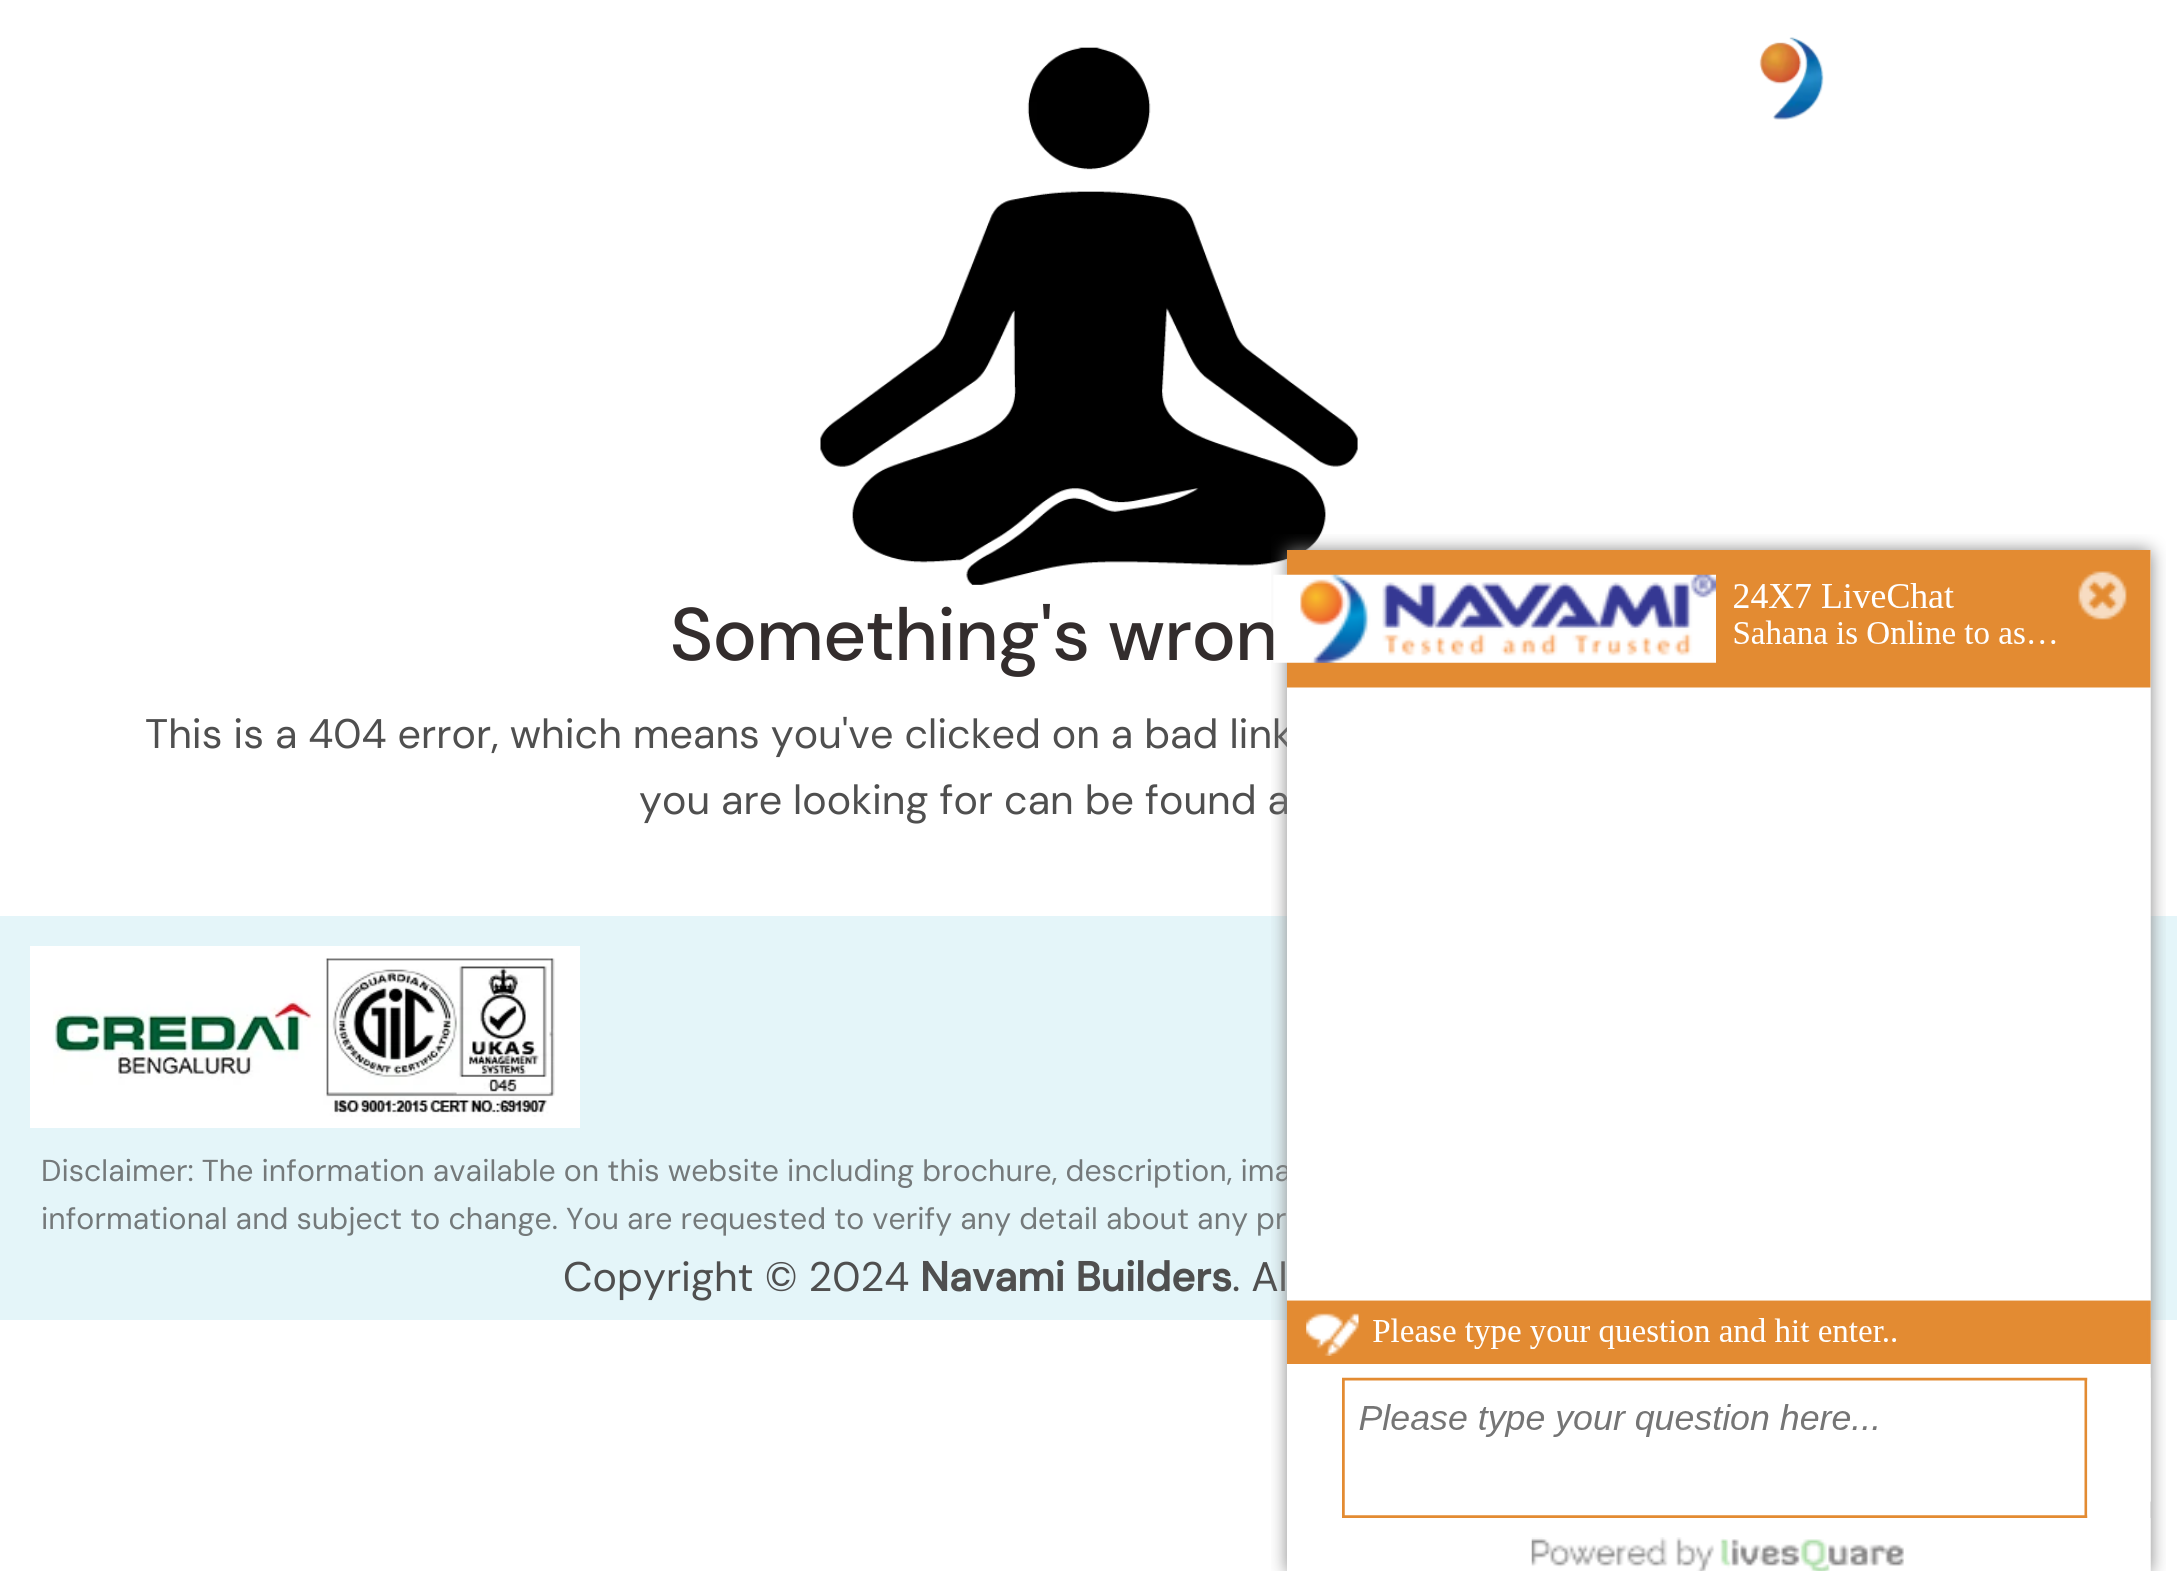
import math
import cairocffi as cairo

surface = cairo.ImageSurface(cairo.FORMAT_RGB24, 2177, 1571)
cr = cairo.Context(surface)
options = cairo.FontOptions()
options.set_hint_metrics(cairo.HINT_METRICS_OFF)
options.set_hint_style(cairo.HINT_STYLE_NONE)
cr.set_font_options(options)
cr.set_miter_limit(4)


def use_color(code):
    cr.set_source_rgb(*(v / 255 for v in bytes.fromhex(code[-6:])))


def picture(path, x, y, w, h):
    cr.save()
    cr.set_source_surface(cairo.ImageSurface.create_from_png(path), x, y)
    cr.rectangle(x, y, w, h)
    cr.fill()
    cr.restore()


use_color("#ffffff")
cr.paint()
picture("img1.png", 1759, 37, 65, 83)
picture("img2.png", 820, 47, 538, 538)
cr.select_font_face("DM Sans Medium")
cr.set_font_size(74.25)
use_color("#332d2d")
cr.move_to(670, 660)
cr.show_text("Something's wron")
cr.select_font_face("DM Sans")
cr.set_font_size(41.25)
use_color("#4f4f4f")
cr.move_to(145, 748)
cr.show_text("This is a 404 error, which means you've clicked on a bad link")
cr.move_to(639, 814)
cr.show_text("you are looking for can be found a")
use_color("#e4f5f9")
cr.rectangle(0, 916, 2177, 404)
cr.fill()
cr.select_font_face("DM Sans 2")
cr.set_font_size(30.25)
use_color("#74797a")
cr.move_to(41, 1181)
cr.show_text("Disclaimer: The information available on this website including brochure, description, ima")
cr.move_to(41, 1229)
cr.show_text("informational and subject to change. You are requested to verify any detail about any pr")
cr.select_font_face("DM Sans")
cr.set_font_size(41.25)
use_color("#4f4f4f")
cr.move_to(1232, 1291)
cr.show_text(". Al")
picture("img3.png", 1271, 534, 895, 1037)
use_color("#ffffff")
cr.rectangle(30, 946, 550, 182)
cr.fill()
picture("img4.png", 53, 958, 502, 159)
use_color("#4f4f4f")
cr.move_to(563, 1291)
cr.show_text("Copyright © 2024")
cr.select_font_face("DM Sans", cairo.FONT_SLANT_NORMAL, cairo.FONT_WEIGHT_BOLD)
cr.move_to(920, 1291)
cr.show_text("Navami Builders")
surface.write_to_png("result.png")
